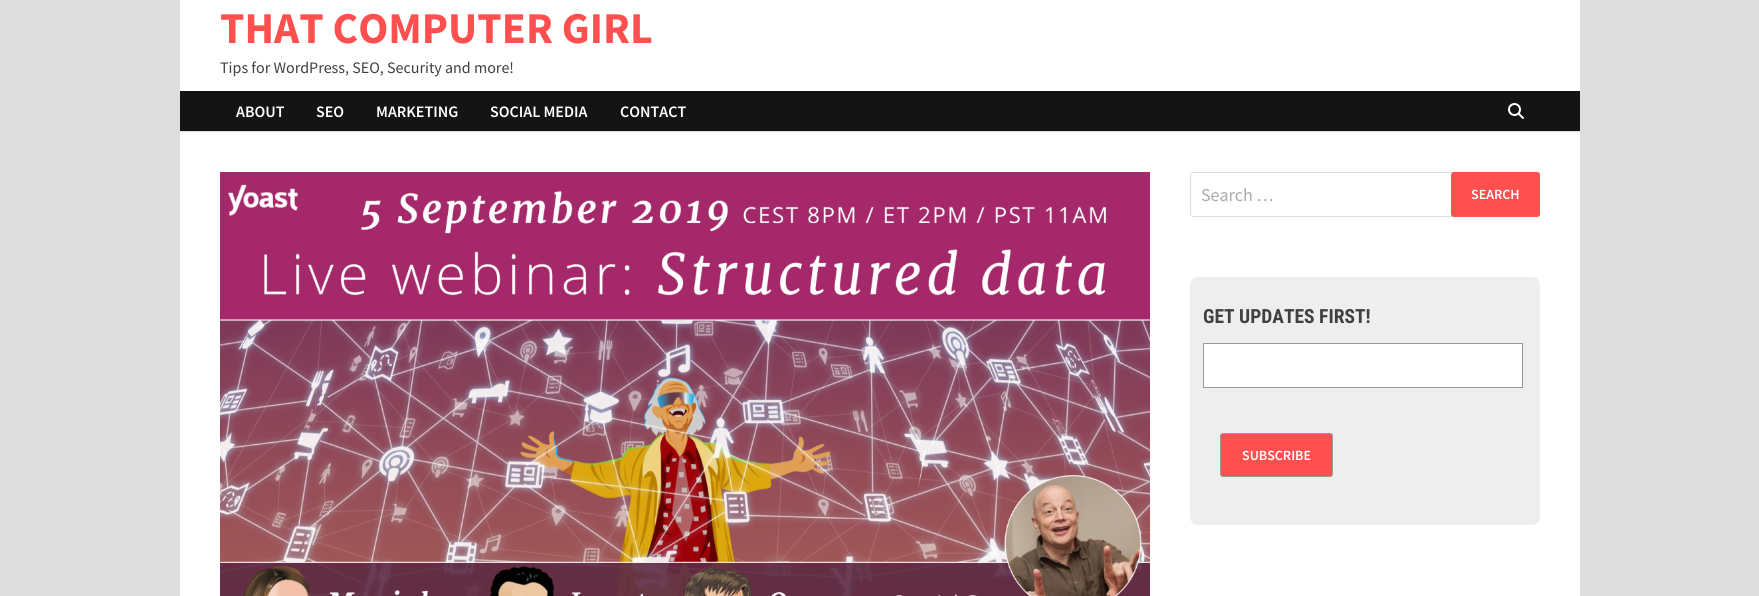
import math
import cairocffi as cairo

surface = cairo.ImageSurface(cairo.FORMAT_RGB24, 1759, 596)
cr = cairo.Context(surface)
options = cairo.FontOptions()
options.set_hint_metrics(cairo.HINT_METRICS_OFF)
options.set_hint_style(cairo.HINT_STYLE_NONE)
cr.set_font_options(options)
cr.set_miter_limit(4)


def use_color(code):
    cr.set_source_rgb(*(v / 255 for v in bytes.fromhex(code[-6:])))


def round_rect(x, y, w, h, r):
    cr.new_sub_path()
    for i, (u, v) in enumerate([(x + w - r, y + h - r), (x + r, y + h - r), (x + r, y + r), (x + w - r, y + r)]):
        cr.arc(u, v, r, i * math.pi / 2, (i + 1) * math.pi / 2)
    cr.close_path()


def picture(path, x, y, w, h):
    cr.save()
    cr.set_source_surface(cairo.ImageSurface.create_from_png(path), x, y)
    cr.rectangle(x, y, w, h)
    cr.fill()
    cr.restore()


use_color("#dddddd")
cr.paint()
use_color("#ffffff")
cr.rectangle(180, 0, 1400, 596)
cr.fill()
use_color("#dddddd")
cr.rectangle(180, 131, 1400, 1)
cr.fill()
cr.select_font_face("Source Sans Pro", cairo.FONT_SLANT_NORMAL, cairo.FONT_WEIGHT_BOLD)
cr.set_font_size(44)
use_color("#ff4f4f")
cr.move_to(220, 43)
cr.show_text("THAT COMPUTER GIRL")
cr.select_font_face("Source Sans Pro")
cr.set_font_size(16)
use_color("#404040")
cr.move_to(220, 73)
cr.show_text("Tips for WordPress, SEO, Security and more!")
use_color("#141414")
cr.rectangle(180, 91, 1400, 40)
cr.fill()
cr.select_font_face("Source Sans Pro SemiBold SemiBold")
use_color("#ffffff")
cr.move_to(236, 117)
cr.show_text("ABOUT")
cr.move_to(316, 117)
cr.show_text("SEO")
cr.move_to(376, 117)
cr.show_text("MARKETING")
cr.move_to(490, 117)
cr.show_text("SOCIAL MEDIA")
cr.move_to(620, 117)
cr.show_text("CONTACT")
picture("img1.png", 1508, 103, 16, 16)
picture("img2.png", 220, 172, 930, 424)
round_rect(1190.5, 172.5, 349, 44, 2.5)
use_color("#dddddd")
cr.set_line_width(1)
cr.stroke()
cr.select_font_face("Source Sans Pro")
cr.set_font_size(18)
use_color("#aaaaaa")
cr.move_to(1201, 201)
cr.show_text("Search …")
use_color("#ff4f4f")
round_rect(1451, 172, 89, 45, 3)
cr.fill()
cr.select_font_face("Source Sans Pro SemiBold SemiBold")
cr.set_font_size(14)
use_color("#ffffff")
cr.move_to(1471, 199)
cr.show_text("SEARCH")
use_color("#eeeeee")
round_rect(1190, 277, 350, 248, 8)
cr.fill()
cr.select_font_face("Roboto Condensed", cairo.FONT_SLANT_NORMAL, cairo.FONT_WEIGHT_BOLD)
cr.set_font_size(19.5)
use_color("#404040")
cr.move_to(1203, 323)
cr.show_text("GET UPDATES FIRST!")
use_color("#ffffff")
cr.rectangle(1203.5, 343.5, 319, 44)
cr.fill_preserve()
use_color("#999999")
cr.stroke()
use_color("#ff4f4f")
round_rect(1220.5, 433.5, 112, 43, 2.5)
cr.fill_preserve()
use_color("#999999")
cr.stroke()
cr.select_font_face("Source Sans Pro SemiBold SemiBold")
cr.set_font_size(14)
use_color("#ffffff")
cr.move_to(1242, 460)
cr.show_text("SUBSCRIBE")
surface.write_to_png("result.png")
